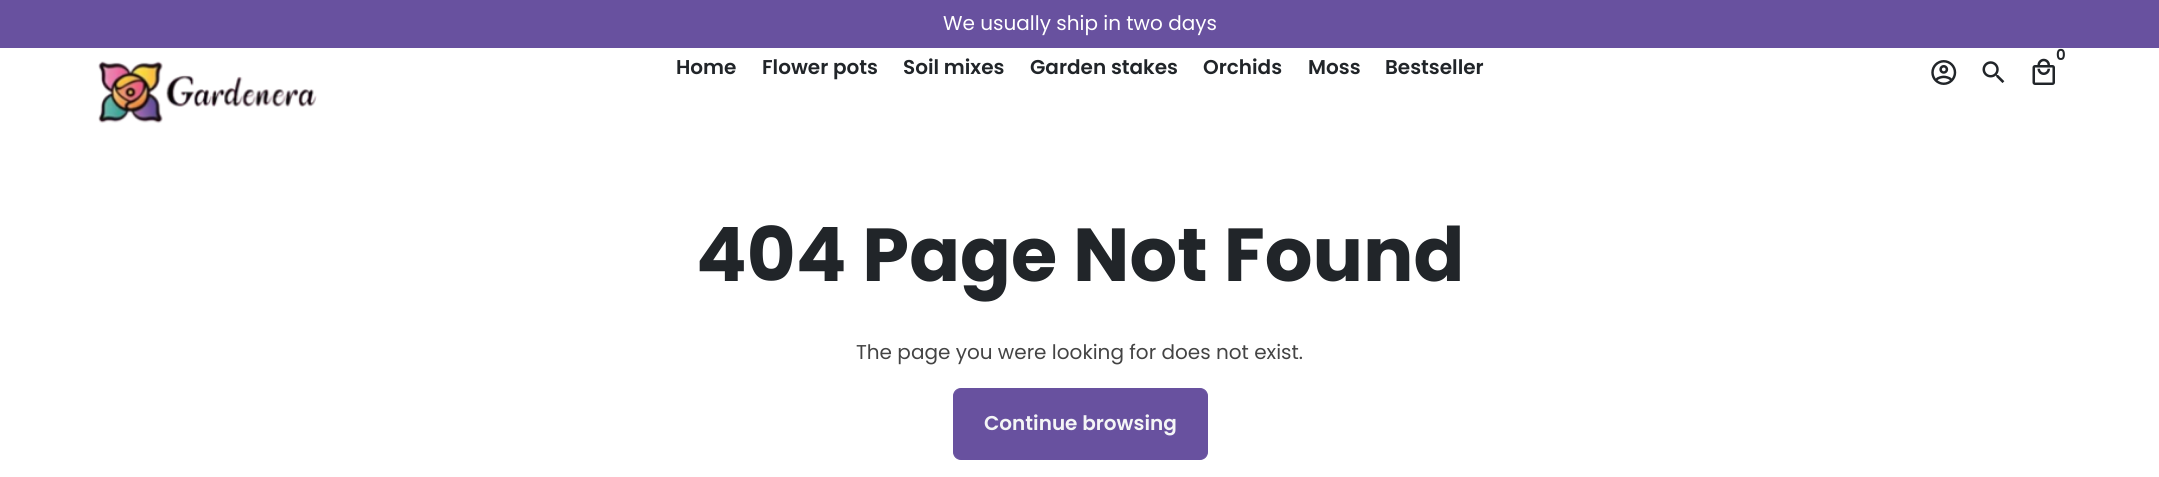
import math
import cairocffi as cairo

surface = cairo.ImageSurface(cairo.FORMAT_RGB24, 2159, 477)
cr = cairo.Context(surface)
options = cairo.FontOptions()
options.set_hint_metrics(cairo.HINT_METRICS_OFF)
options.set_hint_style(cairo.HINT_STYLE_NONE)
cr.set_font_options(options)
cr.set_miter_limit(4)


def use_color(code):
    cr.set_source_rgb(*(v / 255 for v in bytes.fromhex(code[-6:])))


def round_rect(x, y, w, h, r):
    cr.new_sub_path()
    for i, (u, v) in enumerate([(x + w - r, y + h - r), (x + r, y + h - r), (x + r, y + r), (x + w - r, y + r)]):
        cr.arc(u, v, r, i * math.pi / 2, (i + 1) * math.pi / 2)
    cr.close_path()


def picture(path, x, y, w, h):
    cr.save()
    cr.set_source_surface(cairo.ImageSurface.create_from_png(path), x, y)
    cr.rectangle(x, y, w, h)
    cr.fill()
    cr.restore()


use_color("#ffffff")
cr.paint()
use_color("#68519f")
cr.rectangle(0, 0, 2159, 48)
cr.fill()
cr.select_font_face("Poppins")
cr.set_font_size(20)
use_color("#ffffff")
cr.move_to(943, 30)
cr.show_text("We usually ship in two days")
cr.select_font_face("Poppins SemiBold")
cr.set_font_size(15)
use_color("#212529")
cr.move_to(2056, 60)
cr.show_text("0")
picture("img1.png", 2032, 58, 23, 27)
picture("img2.png", 1931, 60, 26, 25)
picture("img3.png", 1982, 61, 23, 22)
picture("img4.png", 98, 61, 219, 63)
cr.set_font_size(20)
cr.move_to(676, 74)
cr.show_text("Home")
cr.move_to(762, 74)
cr.show_text("Flower pots")
cr.move_to(903, 74)
cr.show_text("Soil mixes")
cr.move_to(1030, 74)
cr.show_text("Garden stakes")
cr.move_to(1203, 74)
cr.show_text("Orchids")
cr.move_to(1308, 74)
cr.show_text("Moss")
cr.move_to(1385, 74)
cr.show_text("Bestseller")
cr.select_font_face("Poppins", cairo.FONT_SLANT_NORMAL, cairo.FONT_WEIGHT_BOLD)
cr.set_font_size(75)
cr.move_to(696, 281)
cr.show_text("404 Page Not Found")
cr.select_font_face("Poppins")
cr.set_font_size(20)
use_color("#444444")
cr.move_to(856, 359)
cr.show_text("The page you were looking for does not exist.")
use_color("#68519f")
round_rect(953.5, 388.5, 254, 71, 7.5)
cr.fill_preserve()
cr.set_line_width(1)
cr.stroke()
cr.select_font_face("Poppins SemiBold")
use_color("#f4f5f6")
cr.move_to(984, 430)
cr.show_text("Continue browsing")
surface.write_to_png("result.png")
